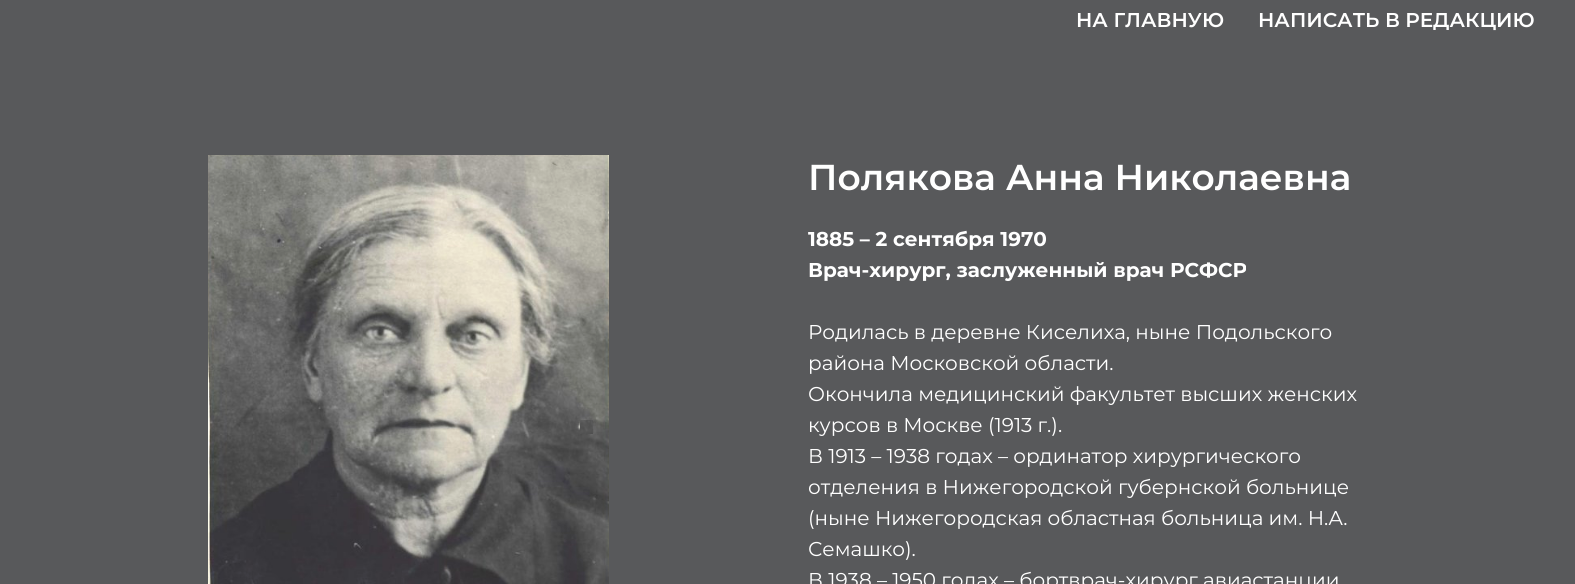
import math
import cairocffi as cairo

surface = cairo.ImageSurface(cairo.FORMAT_RGB24, 1575, 584)
cr = cairo.Context(surface)
options = cairo.FontOptions()
options.set_hint_metrics(cairo.HINT_METRICS_OFF)
options.set_hint_style(cairo.HINT_STYLE_NONE)
cr.set_font_options(options)
cr.set_miter_limit(4)


def use_color(code):
    cr.set_source_rgb(*(v / 255 for v in bytes.fromhex(code[-6:])))


def picture(path, x, y, w, h):
    cr.save()
    cr.set_source_surface(cairo.ImageSurface.create_from_png(path), x, y)
    cr.rectangle(x, y, w, h)
    cr.fill()
    cr.restore()


use_color("#58595b")
cr.paint()
cr.select_font_face("Montserrat SemiBold")
cr.set_font_size(20)
use_color("#ffffff")
cr.move_to(1076, 27)
cr.show_text("НА ГЛАВНУЮ")
cr.move_to(1258, 27)
cr.show_text("НАПИСАТЬ В РЕДАКЦИЮ")
picture("img1.png", 208, 155, 401, 429)
cr.set_font_size(36)
cr.move_to(808, 190)
cr.show_text("Полякова Анна Николаевна")
cr.select_font_face("Montserrat", cairo.FONT_SLANT_NORMAL, cairo.FONT_WEIGHT_BOLD)
cr.set_font_size(20)
cr.move_to(808, 246)
cr.show_text("1885 – 2 сентября 1970")
cr.move_to(808, 277)
cr.show_text("Врач-хирург, заслуженный врач РСФСР")
cr.select_font_face("Montserrat")
cr.move_to(808, 339)
cr.show_text("Родилась в деревне Киселиха, ныне Подольского")
cr.move_to(808, 370)
cr.show_text("района Московской области.")
cr.move_to(808, 401)
cr.show_text("Окончила медицинский факультет высших женских")
cr.move_to(808, 432)
cr.show_text("курсов в Москве (1913 г.).")
cr.move_to(808, 463)
cr.show_text("В 1913 – 1938 годах – ординатор хирургического")
cr.move_to(808, 494)
cr.show_text("отделения в Нижегородской губернской больнице")
cr.move_to(808, 525)
cr.show_text("(ныне Нижегородская областная больница им. Н.А.")
cr.move_to(808, 556)
cr.show_text("Семашко).")
cr.move_to(808, 587)
cr.show_text("В 1938 – 1950 годах – бортврач-хирург авиастанции")
surface.write_to_png("result.png")
